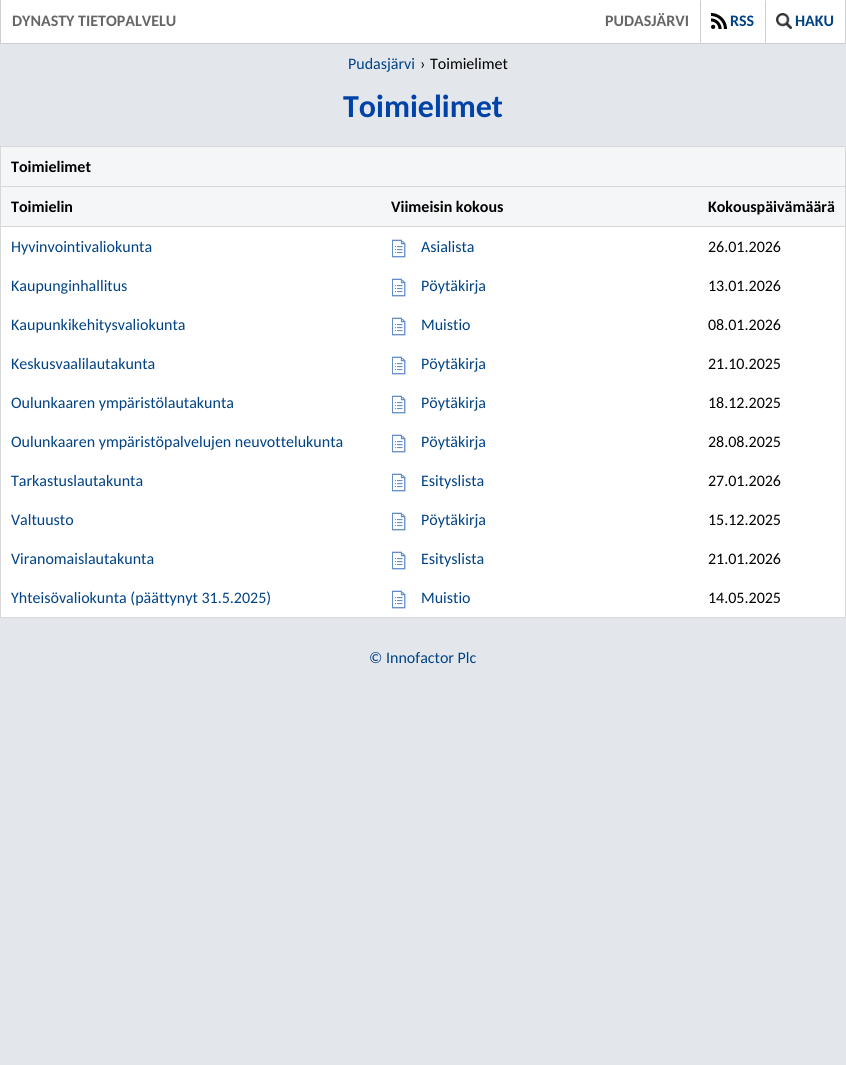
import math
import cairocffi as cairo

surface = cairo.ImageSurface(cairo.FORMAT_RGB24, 846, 1065)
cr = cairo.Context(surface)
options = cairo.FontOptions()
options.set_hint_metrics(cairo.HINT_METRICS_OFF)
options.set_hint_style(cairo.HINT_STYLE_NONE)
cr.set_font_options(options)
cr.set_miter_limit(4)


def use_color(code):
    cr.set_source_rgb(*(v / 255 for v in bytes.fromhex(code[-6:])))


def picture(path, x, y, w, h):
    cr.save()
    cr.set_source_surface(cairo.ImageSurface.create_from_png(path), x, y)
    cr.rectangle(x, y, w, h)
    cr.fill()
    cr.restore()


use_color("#e3e7eb")
cr.paint()
use_color("#ffffff")
cr.rectangle(1, 0, 844, 43)
cr.fill()
use_color("#cbcfd1")
cr.rectangle(845, 0, 1, 44)
cr.fill()
cr.rectangle(0, 43, 846, 1)
cr.fill()
cr.rectangle(0, 0, 1, 44)
cr.fill()
cr.select_font_face("Carlito", cairo.FONT_SLANT_NORMAL, cairo.FONT_WEIGHT_BOLD)
cr.set_font_size(16)
use_color("#666666")
cr.move_to(12, 26)
cr.show_text("DYNASTY TIETOPALVELU")
cr.move_to(605, 26)
cr.show_text("PUDASJÄRVI")
use_color("#cbcfd1")
cr.new_path()
cr.move_to(700, 43)
cr.line_to(700, 0)
cr.line_to(701, 1)
cr.line_to(701, 42)
cr.close_path()
cr.fill()
picture("img1.png", 711, 13, 16, 16)
use_color("#004285")
cr.move_to(730, 26)
cr.show_text("RSS")
use_color("#cbcfd1")
cr.new_path()
cr.move_to(765, 43)
cr.line_to(765, 0)
cr.line_to(766, 1)
cr.line_to(766, 42)
cr.close_path()
cr.fill()
picture("img2.png", 776, 13, 16, 16)
use_color("#004285")
cr.move_to(795, 26)
cr.show_text("HAKU")
cr.select_font_face("Carlito")
cr.move_to(348, 69)
cr.show_text("Pudasjärvi")
use_color("#000000")
cr.move_to(420, 69)
cr.show_text("›")
cr.move_to(430, 69)
cr.show_text("Toimielimet")
cr.select_font_face("Carlito", cairo.FONT_SLANT_NORMAL, cairo.FONT_WEIGHT_BOLD)
cr.set_font_size(32)
use_color("#0043a8")
cr.move_to(343, 117)
cr.show_text("Toimielimet")
use_color("#ffffff")
cr.rectangle(1, 227, 844, 390)
cr.fill()
cr.rectangle(0.5, 146.5, 845, 471)
use_color("#d7d8d9")
cr.set_line_width(1)
cr.stroke()
use_color("#f5f6f7")
cr.rectangle(1, 147, 844, 39)
cr.fill()
use_color("#d7d8d9")
cr.rectangle(1, 186, 844, 1)
cr.fill()
cr.set_font_size(16)
use_color("#000000")
cr.move_to(11, 172)
cr.show_text("Toimielimet")
use_color("#f5f6f7")
cr.rectangle(1, 187, 844, 39)
cr.fill()
use_color("#d7d8d9")
cr.rectangle(1, 226, 844, 1)
cr.fill()
use_color("#000000")
cr.move_to(11, 212)
cr.show_text("Toimielin")
cr.move_to(391, 212)
cr.show_text("Viimeisin kokous")
cr.move_to(708, 212)
cr.show_text("Kokouspäivämäärä")
cr.select_font_face("Carlito")
use_color("#004285")
cr.move_to(11, 252)
cr.show_text("Hyvinvointivaliokunta")
picture("img3.png", 392, 239, 14, 19)
cr.move_to(421, 252)
cr.show_text("Asialista")
use_color("#000000")
cr.move_to(708, 252)
cr.show_text("26.01.2026")
use_color("#004285")
cr.move_to(11, 291)
cr.show_text("Kaupunginhallitus")
picture("img3.png", 392, 278, 14, 19)
cr.move_to(421, 291)
cr.show_text("Pöytäkirja")
use_color("#000000")
cr.move_to(708, 291)
cr.show_text("13.01.2026")
use_color("#004285")
cr.move_to(11, 330)
cr.show_text("Kaupunkikehitysvaliokunta")
picture("img3.png", 392, 317, 14, 19)
cr.move_to(421, 330)
cr.show_text("Muistio")
use_color("#000000")
cr.move_to(708, 330)
cr.show_text("08.01.2026")
use_color("#004285")
cr.move_to(11, 369)
cr.show_text("Keskusvaalilautakunta")
picture("img3.png", 392, 356, 14, 19)
cr.move_to(421, 369)
cr.show_text("Pöytäkirja")
use_color("#000000")
cr.move_to(708, 369)
cr.show_text("21.10.2025")
use_color("#004285")
cr.move_to(11, 408)
cr.show_text("Oulunkaaren ympäristölautakunta")
picture("img3.png", 392, 395, 14, 19)
cr.move_to(421, 408)
cr.show_text("Pöytäkirja")
use_color("#000000")
cr.move_to(708, 408)
cr.show_text("18.12.2025")
use_color("#004285")
cr.move_to(11, 447)
cr.show_text("Oulunkaaren ympäristöpalvelujen neuvottelukunta")
picture("img3.png", 392, 434, 14, 19)
cr.move_to(421, 447)
cr.show_text("Pöytäkirja")
use_color("#000000")
cr.move_to(708, 447)
cr.show_text("28.08.2025")
use_color("#004285")
cr.move_to(11, 486)
cr.show_text("Tarkastuslautakunta")
picture("img3.png", 392, 473, 14, 19)
cr.move_to(421, 486)
cr.show_text("Esityslista")
use_color("#000000")
cr.move_to(708, 486)
cr.show_text("27.01.2026")
use_color("#004285")
cr.move_to(11, 525)
cr.show_text("Valtuusto")
picture("img3.png", 392, 512, 14, 19)
cr.move_to(421, 525)
cr.show_text("Pöytäkirja")
use_color("#000000")
cr.move_to(708, 525)
cr.show_text("15.12.2025")
use_color("#004285")
cr.move_to(11, 564)
cr.show_text("Viranomaislautakunta")
picture("img3.png", 392, 551, 14, 19)
cr.move_to(421, 564)
cr.show_text("Esityslista")
use_color("#000000")
cr.move_to(708, 564)
cr.show_text("21.01.2026")
use_color("#004285")
cr.move_to(11, 603)
cr.show_text("Yhteisövaliokunta (päättynyt 31.5.2025)")
picture("img3.png", 392, 590, 14, 19)
cr.move_to(421, 603)
cr.show_text("Muistio")
use_color("#000000")
cr.move_to(708, 603)
cr.show_text("14.05.2025")
use_color("#004285")
cr.move_to(369, 663)
cr.show_text("© Innofactor Plc")
surface.write_to_png("result.png")
